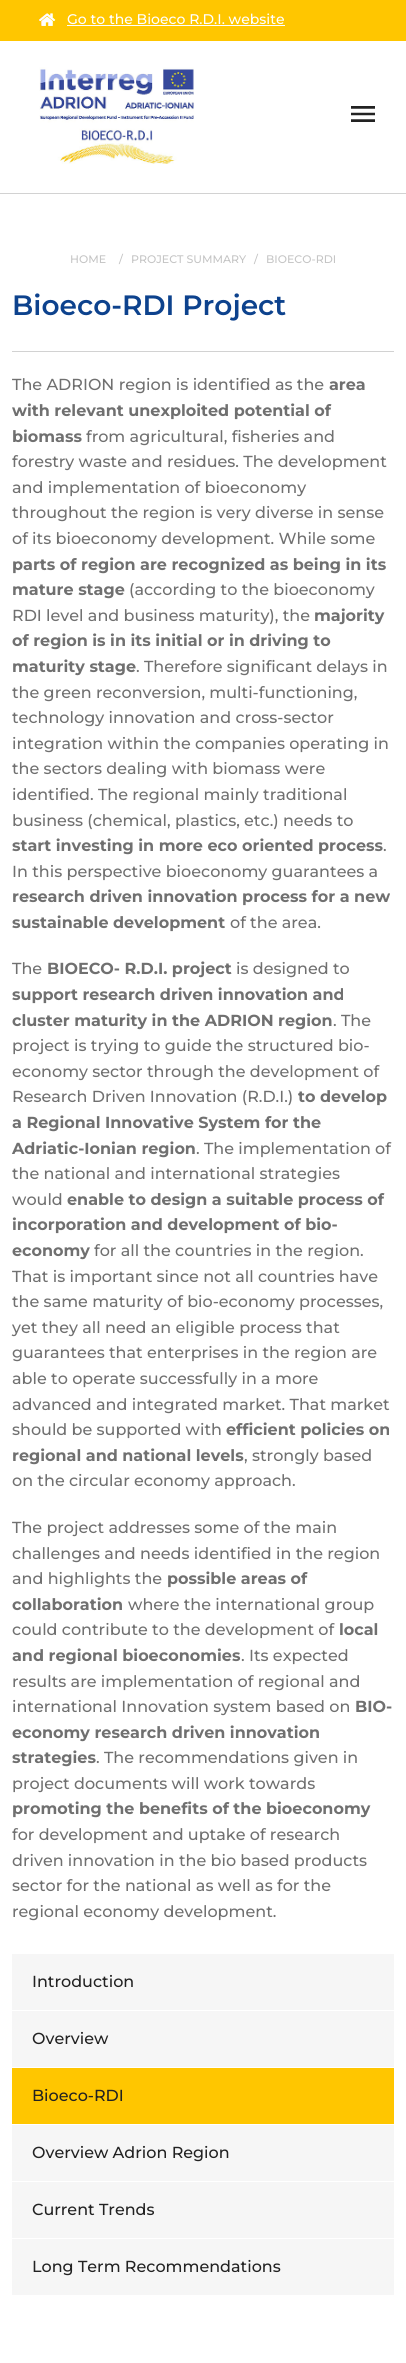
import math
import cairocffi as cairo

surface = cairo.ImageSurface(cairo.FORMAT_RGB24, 406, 2363)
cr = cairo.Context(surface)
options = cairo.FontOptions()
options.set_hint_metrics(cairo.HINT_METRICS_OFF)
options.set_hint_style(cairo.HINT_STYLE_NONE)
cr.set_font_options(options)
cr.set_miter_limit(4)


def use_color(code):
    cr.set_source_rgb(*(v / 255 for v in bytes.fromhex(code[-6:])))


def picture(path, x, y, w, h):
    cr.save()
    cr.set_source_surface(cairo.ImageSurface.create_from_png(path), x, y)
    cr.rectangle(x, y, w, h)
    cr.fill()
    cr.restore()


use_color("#ffffff")
cr.paint()
use_color("#ffc600")
cr.rectangle(0, 0, 406, 41)
cr.fill()
picture("img1.png", 39, 13, 17, 13)
cr.select_font_face("Montserrat Thin")
cr.set_font_size(14)
use_color("#ffffff")
cr.move_to(67, 24)
cr.show_text("Go to the Bioeco R.D.I. website")
cr.rectangle(67, 25, 218, 1)
cr.fill()
use_color("#d2d2d2")
cr.rectangle(0, 193, 406, 1)
cr.fill()
picture("img2.png", 39, 67, 155, 97)
picture("img3.png", 351, 106, 24, 16)
cr.set_font_size(11)
use_color("#c5c5c5")
cr.move_to(70, 263)
cr.show_text("HOME")
cr.move_to(119, 263)
cr.show_text("/")
cr.move_to(131, 263)
cr.show_text("PROJECT SUMMARY")
cr.move_to(254, 263)
cr.show_text("/")
cr.move_to(266, 263)
cr.show_text("BIOECO-RDI")
use_color("#d2d2d2")
cr.rectangle(12, 351, 382, 1)
cr.fill()
cr.select_font_face("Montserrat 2 Thin")
cr.set_font_size(28)
use_color("#0d428d")
cr.move_to(12, 315)
cr.show_text("Bioeco-RDI Project")
cr.select_font_face("Montserrat Thin")
cr.set_font_size(16)
use_color("#707070")
cr.move_to(12, 390)
cr.show_text("The ADRION region is identified as the")
cr.select_font_face("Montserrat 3 Thin")
cr.move_to(329, 390)
cr.show_text("area")
cr.move_to(12, 416)
cr.show_text("with relevant unexploited potential of")
cr.move_to(12, 442)
cr.show_text("biomass")
cr.select_font_face("Montserrat Thin")
cr.move_to(86, 442)
cr.show_text("from agricultural, fisheries and")
cr.move_to(12, 467)
cr.show_text("forestry waste and residues. The development")
cr.move_to(12, 493)
cr.show_text("and implementation of bioeconomy")
cr.move_to(12, 518)
cr.show_text("throughout the region is very diverse in sense")
cr.move_to(12, 544)
cr.show_text("of its bioeconomy development. While some")
cr.select_font_face("Montserrat 3 Thin")
cr.move_to(12, 570)
cr.show_text("parts of region are recognized as being in its")
cr.move_to(12, 595)
cr.show_text("mature stage")
cr.select_font_face("Montserrat Thin")
cr.move_to(129, 595)
cr.show_text("(according to the bioeconomy")
cr.move_to(12, 621)
cr.show_text("RDI level and business maturity), the")
cr.select_font_face("Montserrat 3 Thin")
cr.move_to(314, 621)
cr.show_text("majority")
cr.move_to(12, 646)
cr.show_text("of region is in its initial or in driving to")
cr.move_to(12, 672)
cr.show_text("maturity stage")
cr.select_font_face("Montserrat Thin")
cr.move_to(136, 672)
cr.show_text(". Therefore significant delays in")
cr.move_to(12, 698)
cr.show_text("the green reconversion, multi-functioning,")
cr.move_to(12, 723)
cr.show_text("technology innovation and cross-sector")
cr.move_to(12, 749)
cr.show_text("integration within the companies operating in")
cr.move_to(12, 774)
cr.show_text("the sectors dealing with biomass were")
cr.move_to(12, 800)
cr.show_text("identified. The regional mainly traditional")
cr.move_to(12, 826)
cr.show_text("business (chemical, plastics, etc.) needs to")
cr.select_font_face("Montserrat 3 Thin")
cr.move_to(12, 851)
cr.show_text("start investing in more eco oriented process")
cr.select_font_face("Montserrat Thin")
cr.move_to(383, 851)
cr.show_text(".")
cr.move_to(12, 877)
cr.show_text("In this perspective bioeconomy guarantees a")
cr.select_font_face("Montserrat 3 Thin")
cr.move_to(12, 902)
cr.show_text("research driven innovation process for a new")
cr.move_to(12, 928)
cr.show_text("sustainable development")
cr.select_font_face("Montserrat Thin")
cr.move_to(230, 928)
cr.show_text("of the area.")
cr.move_to(12, 974)
cr.show_text("The")
cr.select_font_face("Montserrat 3 Thin")
cr.move_to(47, 974)
cr.show_text("BIOECO- R.D.I. project")
cr.select_font_face("Montserrat Thin")
cr.move_to(236, 974)
cr.show_text("is designed to")
cr.select_font_face("Montserrat 3 Thin")
cr.move_to(12, 1000)
cr.show_text("support research driven innovation and")
cr.move_to(12, 1026)
cr.show_text("cluster maturity in the ADRION region")
cr.select_font_face("Montserrat Thin")
cr.move_to(333, 1026)
cr.show_text(". The")
cr.move_to(12, 1051)
cr.show_text("project is trying to guide the structured bio-")
cr.move_to(12, 1077)
cr.show_text("economy sector through the development of")
cr.move_to(12, 1102)
cr.show_text("Research Driven Innovation (R.D.I.)")
cr.select_font_face("Montserrat 3 Thin")
cr.move_to(298, 1102)
cr.show_text("to develop")
cr.move_to(12, 1128)
cr.show_text("a Regional Innovative System for the")
cr.move_to(12, 1154)
cr.show_text("Adriatic-Ionian region")
cr.select_font_face("Montserrat Thin")
cr.move_to(196, 1154)
cr.show_text(". The implementation of")
cr.move_to(12, 1179)
cr.show_text("the national and international strategies")
cr.move_to(12, 1205)
cr.show_text("would")
cr.select_font_face("Montserrat 3 Thin")
cr.move_to(67, 1205)
cr.show_text("enable to design a suitable process of")
cr.move_to(12, 1230)
cr.show_text("incorporation and development of bio-")
cr.move_to(12, 1256)
cr.show_text("economy")
cr.select_font_face("Montserrat Thin")
cr.move_to(94, 1256)
cr.show_text("for all the countries in the region.")
cr.move_to(12, 1282)
cr.show_text("That is important since not all countries have")
cr.move_to(12, 1307)
cr.show_text("the same maturity of bio-economy processes,")
cr.move_to(12, 1333)
cr.show_text("yet they all need an eligible process that")
cr.move_to(12, 1358)
cr.show_text("guarantees that enterprises in the region are")
cr.move_to(12, 1384)
cr.show_text("able to operate successfully in a more")
cr.move_to(12, 1410)
cr.show_text("advanced and integrated market. That market")
cr.move_to(12, 1435)
cr.show_text("should be supported with")
cr.select_font_face("Montserrat 3 Thin")
cr.move_to(226, 1435)
cr.show_text("efficient policies on")
cr.move_to(12, 1461)
cr.show_text("regional and national levels")
cr.select_font_face("Montserrat Thin")
cr.move_to(244, 1461)
cr.show_text(", strongly based")
cr.move_to(12, 1486)
cr.show_text("on the circular economy approach.")
cr.move_to(12, 1533)
cr.show_text("The project addresses some of the main")
cr.move_to(12, 1559)
cr.show_text("challenges and needs identified in the region")
cr.move_to(12, 1584)
cr.show_text("and highlights the")
cr.select_font_face("Montserrat 3 Thin")
cr.move_to(167, 1584)
cr.show_text("possible areas of")
cr.move_to(12, 1610)
cr.show_text("collaboration")
cr.select_font_face("Montserrat Thin")
cr.move_to(128, 1610)
cr.show_text("where the international group")
cr.move_to(12, 1635)
cr.show_text("could contribute to the development of")
cr.select_font_face("Montserrat 3 Thin")
cr.move_to(339, 1635)
cr.show_text("local")
cr.move_to(12, 1661)
cr.show_text("and regional bioeconomies")
cr.select_font_face("Montserrat Thin")
cr.move_to(241, 1661)
cr.show_text(". Its expected")
cr.move_to(12, 1687)
cr.show_text("results are implementation of regional and")
cr.move_to(12, 1712)
cr.show_text("international Innovation system based on")
cr.select_font_face("Montserrat 3 Thin")
cr.move_to(355, 1712)
cr.show_text("BIO-")
cr.move_to(12, 1738)
cr.show_text("economy research driven innovation")
cr.move_to(12, 1763)
cr.show_text("strategies")
cr.select_font_face("Montserrat Thin")
cr.move_to(96, 1763)
cr.show_text(". The recommendations given in")
cr.move_to(12, 1789)
cr.show_text("project documents will work towards")
cr.select_font_face("Montserrat 3 Thin")
cr.move_to(12, 1814)
cr.show_text("promoting the benefits of the bioeconomy")
cr.select_font_face("Montserrat Thin")
cr.move_to(12, 1840)
cr.show_text("for development and uptake of research")
cr.move_to(12, 1866)
cr.show_text("driven innovation in the bio based products")
cr.move_to(12, 1891)
cr.show_text("sector for the national as well as for the")
cr.move_to(12, 1917)
cr.show_text("regional economy development.")
use_color("#f6f6f6")
cr.rectangle(12, 1954, 382, 56)
cr.fill()
use_color("#222222")
cr.move_to(32, 1987)
cr.show_text("Introduction")
use_color("#f6f6f6")
cr.rectangle(12, 2011, 382, 56)
cr.fill()
use_color("#222222")
cr.move_to(32, 2044)
cr.show_text("Overview")
use_color("#ffc600")
cr.rectangle(12, 2068, 382, 56)
cr.fill()
use_color("#222222")
cr.move_to(32, 2101)
cr.show_text("Bioeco-RDI")
use_color("#f6f6f6")
cr.rectangle(12, 2125, 382, 56)
cr.fill()
use_color("#222222")
cr.move_to(32, 2158)
cr.show_text("Overview Adrion Region")
use_color("#f6f6f6")
cr.rectangle(12, 2182, 382, 56)
cr.fill()
use_color("#222222")
cr.move_to(32, 2215)
cr.show_text("Current Trends")
use_color("#f6f6f6")
cr.rectangle(12, 2239, 382, 56)
cr.fill()
use_color("#222222")
cr.move_to(32, 2272)
cr.show_text("Long Term Recommendations")
surface.write_to_png("result.png")
